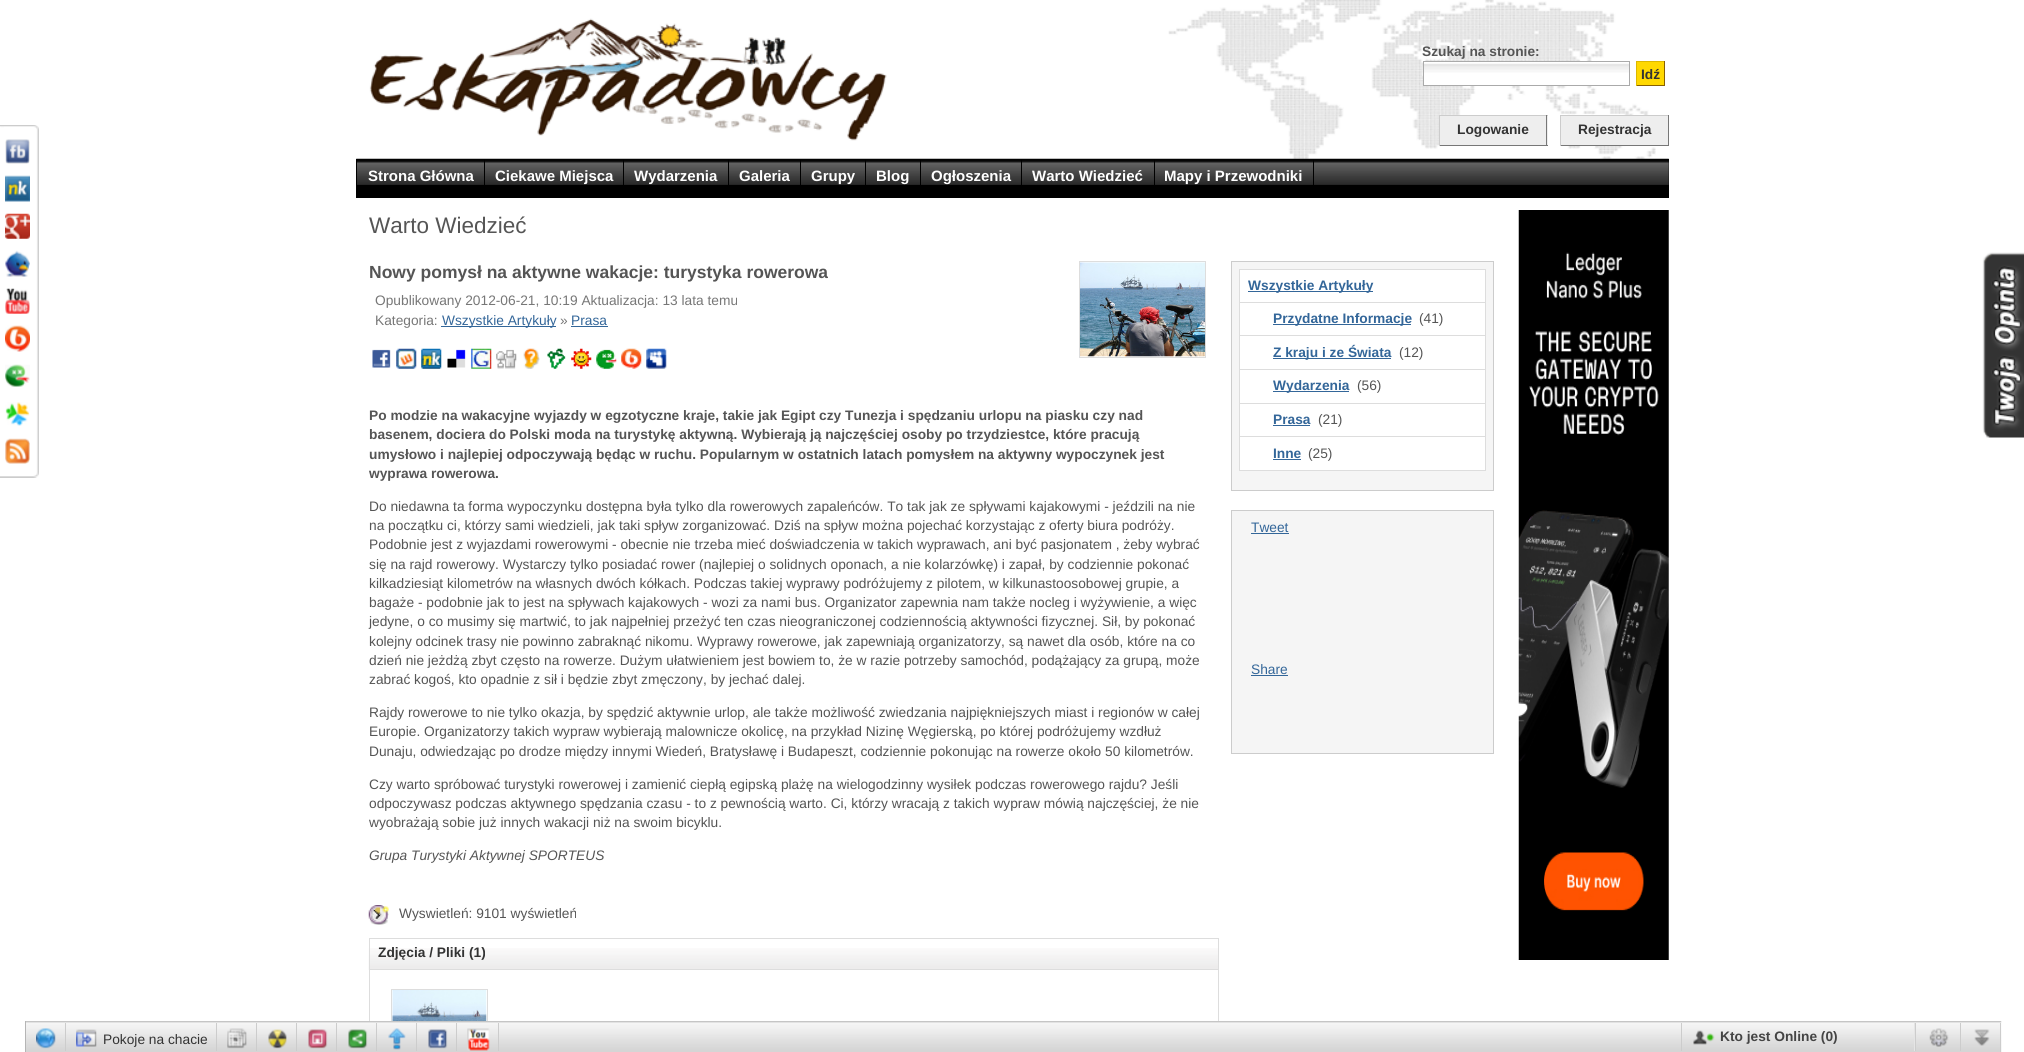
import math
import cairocffi as cairo

surface = cairo.ImageSurface(cairo.FORMAT_RGB24, 2024, 1052)
cr = cairo.Context(surface)
options = cairo.FontOptions()
options.set_hint_metrics(cairo.HINT_METRICS_OFF)
options.set_hint_style(cairo.HINT_STYLE_NONE)
cr.set_font_options(options)
cr.set_miter_limit(4)


def use_color(code):
    cr.set_source_rgb(*(v / 255 for v in bytes.fromhex(code[-6:])))


def picture(path, x, y, w, h):
    cr.save()
    cr.set_source_surface(cairo.ImageSurface.create_from_png(path), x, y)
    cr.rectangle(x, y, w, h)
    cr.fill()
    cr.restore()


use_color("#ffffff")
cr.paint()
picture("img1.png", 0, 125, 39, 340)
picture("img2.png", 0, 465, 39, 13)
picture("img3.png", 5, 139, 25, 25)
picture("img4.png", 5, 175, 25, 27)
picture("img5.png", 5, 213, 25, 26)
picture("img6.png", 5, 250, 25, 27)
picture("img7.png", 5, 288, 25, 26)
picture("img8.png", 5, 325, 25, 27)
picture("img9.png", 5, 364, 25, 23)
picture("img10.png", 5, 402, 25, 24)
picture("img11.png", 5, 438, 25, 26)
picture("img12.png", 1168, 0, 488, 159)
picture("img13.png", 369, 18, 518, 123)
cr.select_font_face("Liberation Sans", cairo.FONT_SLANT_NORMAL, cairo.FONT_WEIGHT_BOLD)
cr.set_font_size(13.75)
use_color("#555555")
cr.move_to(1422, 56)
cr.show_text("Szukaj na stronie:")
use_color("#ffffff")
cr.rectangle(1424, 62, 172, 23)
cr.fill()
picture("img14.png", 1422, 63, 207, 13)
cr.rectangle(1423.5, 61.5, 206, 24)
use_color("#aaaaaa")
cr.set_line_width(1)
cr.stroke()
use_color("#ffd800")
cr.rectangle(1637, 62, 27, 23)
cr.fill()
use_color("#ddb800")
cr.rectangle(1636, 61, 29, 1)
cr.fill()
use_color("#886000")
cr.rectangle(1664, 61, 1, 25)
cr.fill()
cr.rectangle(1636, 85, 29, 1)
cr.fill()
use_color("#ddb800")
cr.rectangle(1636, 61, 1, 25)
cr.fill()
use_color("#333333")
cr.move_to(1641, 79)
cr.show_text("Idź")
use_color("#eeeeee")
cr.rectangle(1440, 116, 108, 29)
cr.fill()
use_color("#cccccc")
cr.rectangle(1439, 115, 109, 1)
cr.fill()
use_color("#777777")
cr.rectangle(1546, 115, 1, 31)
cr.fill()
cr.rectangle(1439, 145, 109, 1)
cr.fill()
use_color("#cccccc")
cr.rectangle(1439, 115, 1, 31)
cr.fill()
use_color("#333333")
cr.move_to(1457, 134)
cr.show_text("Logowanie")
use_color("#eeeeee")
cr.rectangle(1561, 116, 107, 29)
cr.fill()
use_color("#cccccc")
cr.rectangle(1560, 115, 109, 1)
cr.fill()
use_color("#777777")
cr.rectangle(1668, 115, 1, 31)
cr.fill()
cr.rectangle(1560, 145, 109, 1)
cr.fill()
use_color("#cccccc")
cr.rectangle(1560, 115, 1, 31)
cr.fill()
use_color("#333333")
cr.move_to(1578, 134)
cr.show_text("Rejestracja")
use_color("#000000")
cr.rectangle(357, 159, 1312, 39)
cr.fill()
picture("img15.png", 356, 158, 1313, 27)
cr.rectangle(356, 159, 1, 39)
cr.fill()
cr.set_font_size(15)
use_color("#ffffff")
cr.move_to(368, 181)
cr.show_text("Strona Główna")
use_color("#000000")
cr.rectangle(484, 159, 1, 26)
cr.fill()
use_color("#ffffff")
cr.move_to(495, 181)
cr.show_text("Ciekawe Miejsca")
use_color("#000000")
cr.rectangle(623, 159, 1, 26)
cr.fill()
use_color("#ffffff")
cr.move_to(634, 181)
cr.show_text("Wydarzenia")
use_color("#000000")
cr.rectangle(728, 159, 1, 26)
cr.fill()
use_color("#ffffff")
cr.move_to(739, 181)
cr.show_text("Galeria")
use_color("#000000")
cr.rectangle(800, 159, 1, 26)
cr.fill()
use_color("#ffffff")
cr.move_to(811, 181)
cr.show_text("Grupy")
use_color("#000000")
cr.rectangle(865, 159, 1, 26)
cr.fill()
use_color("#ffffff")
cr.move_to(876, 181)
cr.show_text("Blog")
use_color("#000000")
cr.rectangle(920, 159, 1, 26)
cr.fill()
use_color("#ffffff")
cr.move_to(931, 181)
cr.show_text("Ogłoszenia")
use_color("#000000")
cr.rectangle(1021, 159, 1, 26)
cr.fill()
use_color("#ffffff")
cr.move_to(1032, 181)
cr.show_text("Warto Wiedzieć")
use_color("#000000")
cr.rectangle(1154, 159, 1, 26)
cr.fill()
use_color("#ffffff")
cr.move_to(1164, 181)
cr.show_text("Mapy i Przewodniki")
use_color("#000000")
cr.rectangle(1313, 159, 1, 26)
cr.fill()
cr.select_font_face("Liberation Sans")
cr.set_font_size(22.5)
use_color("#555555")
cr.move_to(369, 233)
cr.show_text("Warto Wiedzieć")
cr.select_font_face("Liberation Sans", cairo.FONT_SLANT_NORMAL, cairo.FONT_WEIGHT_BOLD)
cr.set_font_size(17.5)
cr.move_to(369, 278)
cr.show_text("Nowy pomysł na aktywne wakacje: turystyka rowerowa")
cr.rectangle(1079.5, 261.5, 126, 96)
use_color("#dddddd")
cr.stroke()
picture("img16.png", 1080, 262, 125, 95)
cr.select_font_face("Liberation Sans")
cr.set_font_size(13.75)
use_color("#777777")
cr.move_to(375, 305)
cr.show_text("Opublikowany 2012-06-21, 10:19 Aktualizacja: 13 lata temu")
cr.move_to(375, 325)
cr.show_text("Kategoria:")
use_color("#336699")
cr.rectangle(441, 326, 115, 1)
cr.fill()
cr.move_to(442, 325)
cr.show_text("Wszystkie Artykuły")
use_color("#777777")
cr.move_to(560, 325)
cr.show_text("»")
use_color("#336699")
cr.move_to(571, 325)
cr.show_text("Prasa")
cr.rectangle(571, 326, 37, 1)
cr.fill()
picture("img17.png", 372, 349, 19, 19)
picture("img18.png", 396, 348, 21, 21)
picture("img19.png", 421, 348, 21, 21)
picture("img20.png", 447, 349, 19, 19)
picture("img21.png", 471, 348, 21, 21)
picture("img22.png", 496, 349, 21, 20)
picture("img23.png", 523, 348, 17, 21)
picture("img24.png", 547, 348, 19, 21)
picture("img25.png", 571, 348, 21, 21)
picture("img26.png", 596, 349, 21, 20)
picture("img27.png", 621, 348, 21, 21)
picture("img28.png", 646, 348, 21, 21)
cr.select_font_face("Liberation Sans", cairo.FONT_SLANT_NORMAL, cairo.FONT_WEIGHT_BOLD)
use_color("#555555")
cr.move_to(369, 420)
cr.show_text("Po modzie na wakacyjne wyjazdy w egzotyczne kraje, takie jak Egipt czy Tunezja i spędzaniu urlopu na piasku czy nad")
cr.move_to(369, 439)
cr.show_text("basenem, dociera do Polski moda na turystykę aktywną. Wybierają ją najczęściej osoby po trzydziestce, które pracują")
cr.move_to(369, 459)
cr.show_text("umysłowo i najlepiej odpoczywają będąc w ruchu. Popularnym w ostatnich latach pomysłem na aktywny wypoczynek jest")
cr.move_to(369, 478)
cr.show_text("wyprawa rowerowa.")
cr.select_font_face("Liberation Sans")
cr.move_to(369, 511)
cr.show_text("Do niedawna ta forma wypoczynku dostępna była tylko dla rowerowych zapaleńców. To tak jak ze spływami kajakowymi - jeździli na nie")
cr.move_to(369, 530)
cr.show_text("na początku ci, którzy sami wiedzieli, jak taki spływ zorganizować. Dziś na spływ można pojechać korzystając z oferty biura podróży.")
cr.move_to(369, 549)
cr.show_text("Podobnie jest z wyjazdami rowerowymi - obecnie nie trzeba mieć doświadczenia w takich wyprawach, ani być pasjonatem , żeby wybrać")
cr.move_to(369, 569)
cr.show_text("się na rajd rowerowy. Wystarczy tylko posiadać rower (najlepiej o solidnych oponach, a nie kolarzówkę) i zapał, by codziennie pokonać")
cr.move_to(369, 588)
cr.show_text("kilkadziesiąt kilometrów na własnych dwóch kółkach. Podczas takiej wyprawy podróżujemy z pilotem, w kilkunastoosobowej grupie, a")
cr.move_to(369, 607)
cr.show_text("bagaże - podobnie jak to jest na spływach kajakowych - wozi za nami bus. Organizator zapewnia nam także nocleg i wyżywienie, a więc")
cr.move_to(369, 626)
cr.show_text("jedyne, o co musimy się martwić, to jak najpełniej przeżyć ten czas nieograniczonej codziennością aktywności fizycznej. Sił, by pokonać")
cr.move_to(369, 646)
cr.show_text("kolejny odcinek trasy nie powinno zabraknąć nikomu. Wyprawy rowerowe, jak zapewniają organizatorzy, są nawet dla osób, które na co")
cr.move_to(369, 665)
cr.show_text("dzień nie jeżdżą zbyt często na rowerze. Dużym ułatwieniem jest bowiem to, że w razie potrzeby samochód, podążający za grupą, może")
cr.move_to(369, 684)
cr.show_text("zabrać kogoś, kto opadnie z sił i będzie zbyt zmęczony, by jechać dalej.")
cr.move_to(369, 717)
cr.show_text("Rajdy rowerowe to nie tylko okazja, by spędzić aktywnie urlop, ale także możliwość zwiedzania najpiękniejszych miast i regionów w całej")
cr.move_to(369, 736)
cr.show_text("Europie. Organizatorzy takich wypraw wybierają malownicze okolicę, na przykład Nizinę Węgierską, po której podróżujemy wzdłuż")
cr.move_to(369, 756)
cr.show_text("Dunaju, odwiedzając po drodze między innymi Wiedeń, Bratysławę i Budapeszt, codziennie pokonując na rowerze około 50 kilometrów.")
cr.move_to(369, 789)
cr.show_text("Czy warto spróbować turystyki rowerowej i zamienić ciepłą egipską plażę na wielogodzinny wysiłek podczas rowerowego rajdu? Jeśli")
cr.move_to(369, 808)
cr.show_text("odpoczywasz podczas aktywnego spędzania czasu - to z pewnością warto. Ci, którzy wracają z takich wypraw mówią najczęściej, że nie")
cr.move_to(369, 827)
cr.show_text("wyobrażają sobie już innych wakacji niż na swoim bicyklu.")
cr.select_font_face("Liberation Sans", cairo.FONT_SLANT_ITALIC)
cr.move_to(369, 860)
cr.show_text("Grupa Turystyki Aktywnej SPORTEUS")
picture("img29.png", 368, 905, 21, 20)
cr.select_font_face("Liberation Sans")
cr.move_to(399, 918)
cr.show_text("Wyswietleń: 9101 wyświetleń")
picture("img30.png", 368, 948, 850, 22)
cr.rectangle(369.5, 938.5, 849, 31)
use_color("#dddddd")
cr.stroke()
cr.select_font_face("Liberation Sans", cairo.FONT_SLANT_NORMAL, cairo.FONT_WEIGHT_BOLD)
use_color("#333333")
cr.move_to(378, 957)
cr.show_text("Zdjęcia / Pliki (1)")
use_color("#dddddd")
cr.rectangle(1218, 970, 1, 51)
cr.fill()
cr.rectangle(369, 970, 1, 51)
cr.fill()
cr.rectangle(391.5, 989.5, 96, 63)
cr.stroke()
picture("img31.png", 392, 990, 95, 31)
use_color("#f5f5f5")
cr.rectangle(1231.5, 261.5, 262, 229)
cr.fill_preserve()
use_color("#cccccc")
cr.stroke()
use_color("#ffffff")
cr.rectangle(1239.5, 269.5, 246, 33)
cr.fill_preserve()
use_color("#dddddd")
cr.stroke()
use_color("#336699")
cr.rectangle(1248, 291, 125, 1)
cr.fill()
cr.move_to(1248, 290)
cr.show_text("Wszystkie Artykuły")
use_color("#ffffff")
cr.rectangle(1240, 303, 245, 32)
cr.fill()
use_color("#dddddd")
cr.rectangle(1239, 335, 34, 1)
cr.fill()
cr.rectangle(1239, 303, 1, 33)
cr.fill()
cr.rectangle(1485, 303, 1, 168)
cr.fill()
cr.rectangle(1273, 335, 213, 1)
cr.fill()
use_color("#336699")
cr.rectangle(1273, 324, 138, 1)
cr.fill()
cr.move_to(1273, 323)
cr.show_text("Przydatne Informacje")
cr.select_font_face("Liberation Sans")
use_color("#555555")
cr.move_to(1419, 323)
cr.show_text("(41)")
use_color("#ffffff")
cr.rectangle(1240, 336, 245, 33)
cr.fill()
use_color("#dddddd")
cr.rectangle(1239, 369, 247, 1)
cr.fill()
cr.rectangle(1239, 336, 1, 34)
cr.fill()
use_color("#336699")
cr.rectangle(1273, 358, 118, 1)
cr.fill()
cr.select_font_face("Liberation Sans", cairo.FONT_SLANT_NORMAL, cairo.FONT_WEIGHT_BOLD)
cr.move_to(1273, 357)
cr.show_text("Z kraju i ze Świata")
cr.select_font_face("Liberation Sans")
use_color("#555555")
cr.move_to(1399, 357)
cr.show_text("(12)")
use_color("#ffffff")
cr.rectangle(1240, 370, 245, 33)
cr.fill()
use_color("#dddddd")
cr.rectangle(1239, 403, 247, 1)
cr.fill()
cr.rectangle(1239, 370, 1, 34)
cr.fill()
use_color("#336699")
cr.rectangle(1273, 391, 76, 1)
cr.fill()
cr.select_font_face("Liberation Sans", cairo.FONT_SLANT_NORMAL, cairo.FONT_WEIGHT_BOLD)
cr.move_to(1273, 390)
cr.show_text("Wydarzenia")
cr.select_font_face("Liberation Sans")
use_color("#555555")
cr.move_to(1357, 390)
cr.show_text("(56)")
use_color("#ffffff")
cr.rectangle(1240, 404, 245, 34)
cr.fill()
use_color("#dddddd")
cr.rectangle(1239, 436, 247, 1)
cr.fill()
cr.rectangle(1239, 404, 1, 34)
cr.fill()
cr.select_font_face("Liberation Sans", cairo.FONT_SLANT_NORMAL, cairo.FONT_WEIGHT_BOLD)
use_color("#336699")
cr.move_to(1273, 424)
cr.show_text("Prasa")
cr.rectangle(1273, 425, 37, 1)
cr.fill()
cr.select_font_face("Liberation Sans")
use_color("#555555")
cr.move_to(1318, 424)
cr.show_text("(21)")
use_color("#ffffff")
cr.rectangle(1240, 438, 245, 32)
cr.fill()
use_color("#dddddd")
cr.rectangle(1239, 470, 247, 1)
cr.fill()
cr.rectangle(1239, 438, 1, 33)
cr.fill()
cr.select_font_face("Liberation Sans", cairo.FONT_SLANT_NORMAL, cairo.FONT_WEIGHT_BOLD)
use_color("#336699")
cr.move_to(1273, 458)
cr.show_text("Inne")
cr.rectangle(1273, 459, 28, 1)
cr.fill()
cr.select_font_face("Liberation Sans")
use_color("#555555")
cr.move_to(1308, 458)
cr.show_text("(25)")
use_color("#f5f5f5")
cr.rectangle(1231.5, 510.5, 262, 243)
cr.fill_preserve()
use_color("#cccccc")
cr.stroke()
use_color("#336699")
cr.move_to(1251, 532)
cr.show_text("Tweet")
cr.rectangle(1251, 533, 38, 1)
cr.fill()
cr.move_to(1251, 674)
cr.show_text("Share")
cr.rectangle(1251, 675, 37, 1)
cr.fill()
picture("img32.png", 1518, 210, 151, 750)
picture("img33.png", 1982, 252, 42, 186)
picture("img34.png", 26, 1021, 1976, 31)
use_color("#b5b5b5")
cr.rectangle(25, 1021, 1, 31)
cr.fill()
use_color("#cccccc")
cr.rectangle(65, 1023, 1, 28)
cr.fill()
picture("img35.png", 36, 1028, 20, 21)
cr.rectangle(216, 1023, 1, 28)
cr.fill()
picture("img36.png", 76, 1029, 21, 18)
use_color("#333333")
cr.move_to(103, 1044)
cr.show_text("Pokoje na chacie")
use_color("#cccccc")
cr.rectangle(256, 1023, 1, 28)
cr.fill()
picture("img37.png", 227, 1028, 20, 21)
cr.rectangle(296, 1023, 1, 28)
cr.fill()
picture("img38.png", 268, 1029, 19, 20)
cr.rectangle(336, 1023, 1, 28)
cr.fill()
picture("img39.png", 308, 1029, 20, 20)
cr.rectangle(376, 1023, 1, 28)
cr.fill()
picture("img40.png", 348, 1029, 20, 20)
cr.rectangle(416, 1023, 1, 28)
cr.fill()
picture("img41.png", 388, 1028, 18, 22)
cr.rectangle(456, 1023, 1, 28)
cr.fill()
picture("img42.png", 428, 1029, 20, 20)
cr.rectangle(498, 1023, 1, 28)
cr.fill()
picture("img43.png", 467, 1028, 23, 23)
use_color("#e5e5e5")
cr.rectangle(1914, 1023, 1, 28)
cr.fill()
use_color("#cccccc")
cr.rectangle(1681, 1023, 1, 28)
cr.fill()
picture("img44.png", 1693, 1030, 22, 15)
cr.select_font_face("Liberation Sans", cairo.FONT_SLANT_NORMAL, cairo.FONT_WEIGHT_BOLD)
use_color("#444444")
cr.move_to(1720, 1041)
cr.show_text("Kto jest Online (0)")
picture("img45.png", 1929, 1028, 20, 19)
use_color("#cccccc")
cr.rectangle(1960, 1023, 1, 28)
cr.fill()
cr.rectangle(1915, 1023, 1, 28)
cr.fill()
picture("img46.png", 1974, 1029, 16, 17)
cr.rectangle(2000, 1023, 1, 29)
cr.fill()
surface.write_to_png("result.png")
